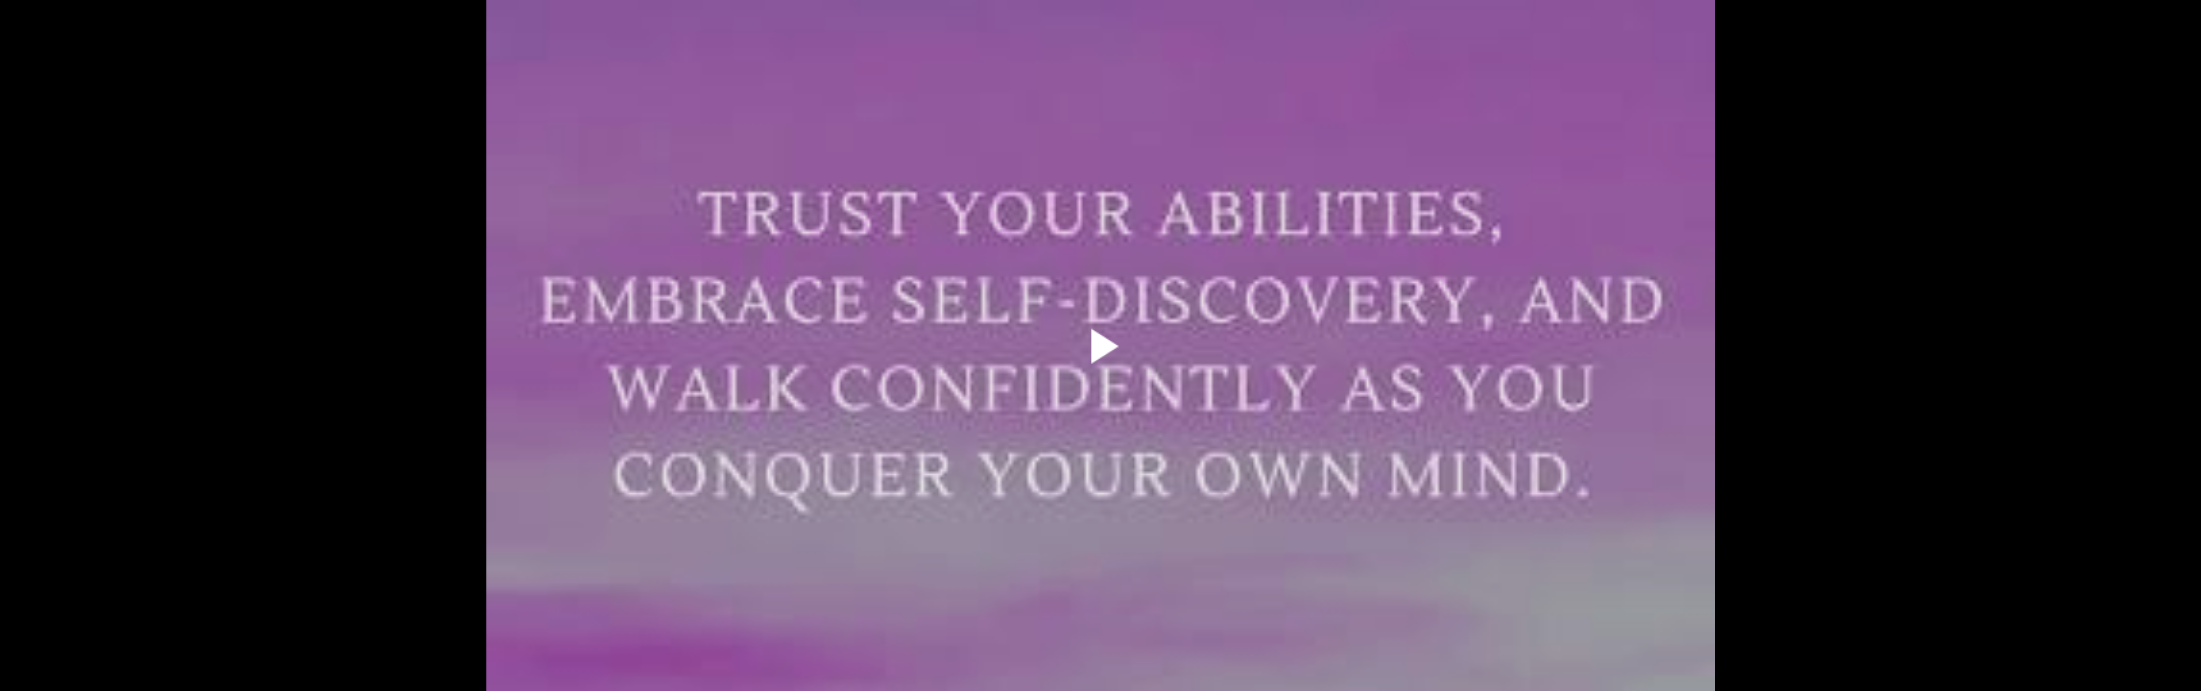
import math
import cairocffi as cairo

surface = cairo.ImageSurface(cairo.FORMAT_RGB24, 2201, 691)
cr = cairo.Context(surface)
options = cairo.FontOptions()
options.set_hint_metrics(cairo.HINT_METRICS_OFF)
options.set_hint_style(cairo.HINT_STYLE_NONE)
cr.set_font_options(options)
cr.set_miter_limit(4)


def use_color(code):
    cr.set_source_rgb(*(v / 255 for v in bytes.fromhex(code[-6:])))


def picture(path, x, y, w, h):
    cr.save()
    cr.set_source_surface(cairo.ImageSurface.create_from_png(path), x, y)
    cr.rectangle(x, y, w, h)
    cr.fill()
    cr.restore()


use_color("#000000")
cr.paint()
picture("img1.png", 486, 0, 1229, 691)
picture("img2.png", 1091, 328, 28, 36)
surface.write_to_png("result.png")
